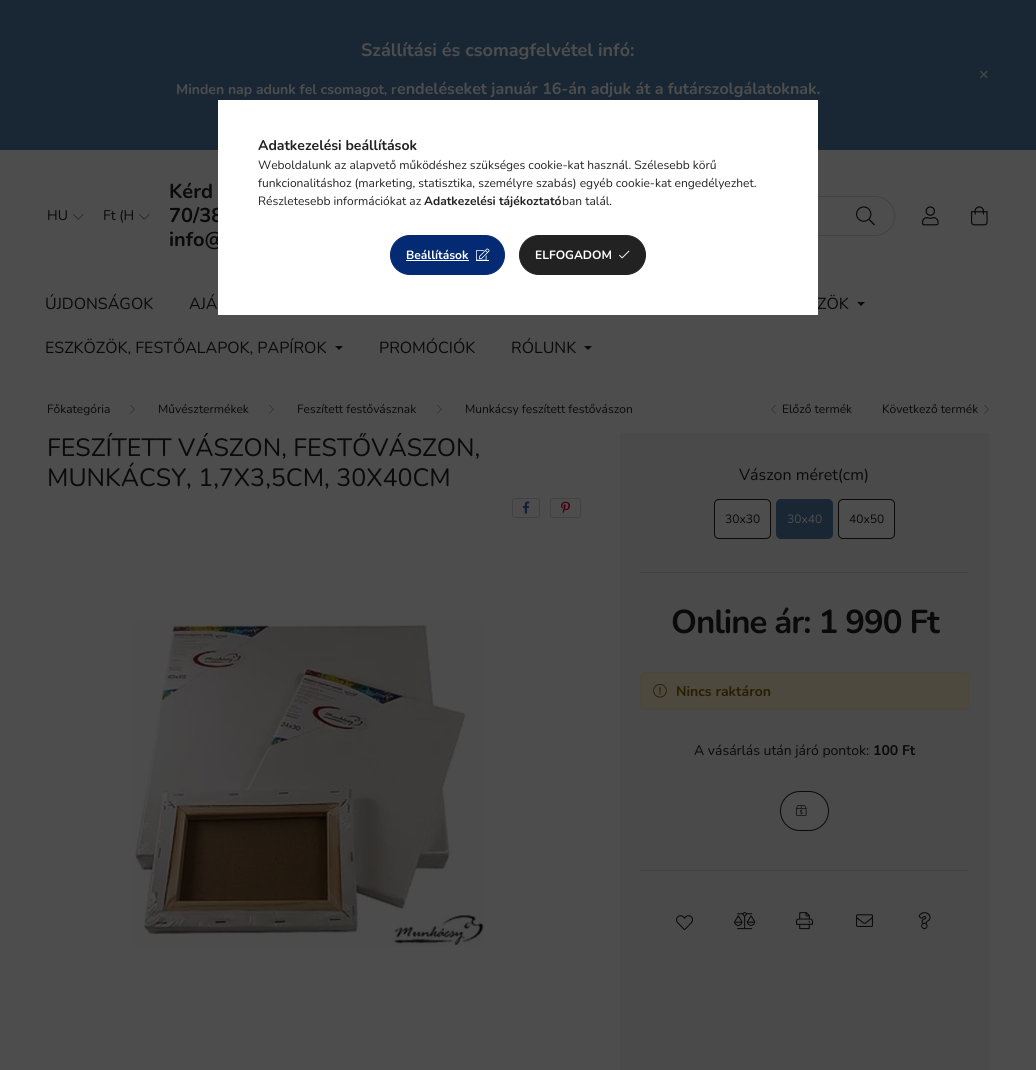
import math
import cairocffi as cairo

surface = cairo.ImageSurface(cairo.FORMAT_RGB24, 1036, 1070)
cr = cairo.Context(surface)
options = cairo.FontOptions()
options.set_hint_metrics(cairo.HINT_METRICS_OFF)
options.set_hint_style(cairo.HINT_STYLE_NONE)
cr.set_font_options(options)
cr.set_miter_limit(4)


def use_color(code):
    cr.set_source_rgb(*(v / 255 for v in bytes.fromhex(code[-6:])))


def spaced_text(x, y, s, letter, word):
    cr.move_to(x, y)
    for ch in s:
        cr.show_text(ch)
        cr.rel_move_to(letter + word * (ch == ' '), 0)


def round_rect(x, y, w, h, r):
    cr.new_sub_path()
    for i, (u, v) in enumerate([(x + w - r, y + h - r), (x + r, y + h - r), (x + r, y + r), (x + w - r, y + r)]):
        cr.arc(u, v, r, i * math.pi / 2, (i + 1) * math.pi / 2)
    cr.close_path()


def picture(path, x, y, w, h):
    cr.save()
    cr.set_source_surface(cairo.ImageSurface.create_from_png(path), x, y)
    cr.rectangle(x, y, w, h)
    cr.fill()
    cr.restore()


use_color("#4d4d4d")
cr.paint()
use_color("#192735")
cr.rectangle(0, 0, 1036, 150)
cr.fill()
cr.select_font_face("Nunito", cairo.FONT_SLANT_NORMAL, cairo.FONT_WEIGHT_BOLD)
cr.set_font_size(18)
use_color("#4d4d4d")
cr.move_to(361, 56)
cr.show_text("Szállítási és csomagfelvétel infó:")
picture("img1.png", 980, 70, 8, 9)
cr.set_font_size(14)
cr.move_to(176, 94)
cr.show_text("Minden nap adunk fel csomagot, r")
cr.set_font_size(16)
cr.move_to(397, 94)
cr.show_text("endeléseket január 16-án adjuk át a futárszolgálatoknak.")
cr.select_font_face("Nunito")
cr.set_font_size(14)
use_color("#0a0a0a")
cr.move_to(47, 220)
cr.show_text("HU")
picture("img2.png", 73, 214, 11, 6)
cr.move_to(103, 220)
cr.show_text("Ft (H")
picture("img2.png", 139, 214, 11, 6)
cr.select_font_face("Nunito", cairo.FONT_SLANT_NORMAL, cairo.FONT_WEIGHT_BOLD)
cr.set_font_size(20)
cr.move_to(169, 198)
cr.show_text("Kérd")
cr.move_to(169, 222)
cr.show_text("70/38")
cr.move_to(169, 246)
cr.show_text("info@")
round_rect(675.5, 196.5, 219, 39, 19.5)
use_color("#424242")
cr.set_line_width(1)
cr.stroke()
picture("img3.png", 856, 206, 19, 20)
picture("img4.png", 922, 206, 17, 20)
picture("img5.png", 971, 206, 17, 20)
cr.select_font_face("Nunito")
cr.set_font_size(16)
use_color("#0a0a0a")
cr.move_to(45, 309)
cr.show_text("ÚJDONSÁGOK")
cr.move_to(189, 309)
cr.show_text("AJÁ")
cr.move_to(817, 309)
cr.show_text("ZÖK")
cr.new_path()
cr.move_to(857, 302)
cr.line_to(865, 302)
cr.line_to(861, 306)
cr.close_path()
cr.fill()
cr.move_to(45, 353)
cr.show_text("ESZKÖZÖK, FESTŐALAPOK, PAPÍROK")
cr.new_path()
cr.move_to(335, 346)
cr.line_to(343, 346)
cr.line_to(339, 350)
cr.close_path()
cr.fill()
cr.move_to(379, 353)
cr.show_text("PROMÓCIÓK")
cr.move_to(511, 353)
cr.show_text("RÓLUNK")
cr.new_path()
cr.move_to(584, 346)
cr.line_to(592, 346)
cr.line_to(588, 350)
cr.close_path()
cr.fill()
cr.set_font_size(12)
cr.move_to(47, 413)
cr.show_text("Főkategória")
picture("img6.png", 130, 405, 5, 9)
cr.move_to(158, 413)
cr.show_text("Művésztermékek")
picture("img6.png", 269, 405, 5, 9)
cr.move_to(297, 413)
cr.show_text("Feszített festővásznak")
picture("img6.png", 437, 405, 5, 9)
cr.move_to(465, 413)
cr.show_text("Munkácsy feszített festővászon")
picture("img7.png", 771, 405, 5, 9)
cr.move_to(782, 413)
cr.show_text("Előző termék")
cr.move_to(882, 413)
cr.show_text("Következő termék")
picture("img6.png", 984, 405, 5, 9)
cr.save()
cr.rectangle(47, 433, 533, 60)
cr.clip()
cr.set_font_size(25)
cr.move_to(47, 456)
cr.show_text("FESZÍTETT VÁSZON, FESTŐVÁSZON,")
cr.restore()
cr.set_font_size(25)
cr.move_to(47, 486)
cr.show_text("MUNKÁCSY, 1,7X3,5CM, 30X40CM")
round_rect(512.5, 498.5, 27, 19, 2.5)
use_color("#424242")
cr.stroke()
picture("img8.png", 523, 501, 7, 13)
round_rect(550.5, 498.5, 30, 19, 2.5)
cr.stroke()
picture("img9.png", 561, 501, 9, 13)
picture("img10.png", 134, 621, 350, 325)
use_color("#4a4a4a")
cr.rectangle(620, 433, 369, 637)
cr.fill()
use_color("#424242")
cr.rectangle(640, 572, 329, 1)
cr.fill()
cr.set_font_size(16)
use_color("#0a0a0a")
cr.move_to(739, 480)
cr.show_text("Vászon méret(cm)")
use_color("#4d4d4d")
round_rect(714.5, 499.5, 56, 39, 4.5)
cr.fill_preserve()
use_color("#0a0a0a")
cr.stroke()
cr.set_font_size(12)
cr.move_to(725, 523)
cr.show_text("30x30")
use_color("#192735")
round_rect(776.5, 499.5, 56, 39, 4.5)
cr.fill_preserve()
cr.stroke()
use_color("#4d4d4d")
cr.move_to(787, 523)
cr.show_text("30x40")
round_rect(838.5, 499.5, 56, 39, 4.5)
cr.fill_preserve()
use_color("#0a0a0a")
cr.stroke()
cr.move_to(849, 523)
cr.show_text("40x50")
cr.select_font_face("Nunito", cairo.FONT_SLANT_NORMAL, cairo.FONT_WEIGHT_BOLD)
cr.set_font_size(33)
spaced_text(671, 633, "Online ár: 1 990 Ft", -1, 0)
use_color("#4d493e")
round_rect(640.5, 672.5, 328, 37, 4.5)
cr.fill_preserve()
use_color("#4d4738")
cr.stroke()
picture("img11.png", 653, 684, 14, 14)
cr.set_font_size(14)
use_color("#281e01")
cr.move_to(676, 696)
cr.show_text("Nincs raktáron")
cr.select_font_face("Nunito")
use_color("#0a0a0a")
cr.move_to(694, 755)
cr.show_text("A vásárlás után járó pontok:")
cr.select_font_face("Nunito", cairo.FONT_SLANT_NORMAL, cairo.FONT_WEIGHT_BOLD)
cr.move_to(873, 755)
cr.show_text("100 Ft")
use_color("#4d4d4d")
round_rect(780.5, 791.5, 48, 39, 19.5)
cr.fill_preserve()
use_color("#0a0a0a")
cr.stroke()
picture("img12.png", 796, 805, 11, 11)
use_color("#424242")
cr.rectangle(640, 870, 329, 1)
cr.fill()
picture("img13.png", 676, 915, 17, 15)
picture("img14.png", 734, 912, 22, 18)
picture("img15.png", 796, 912, 17, 18)
picture("img16.png", 856, 914, 17, 13)
picture("img17.png", 918, 912, 13, 18)
use_color("#ffffff")
cr.rectangle(218, 100, 600, 215)
cr.fill()
use_color("#222222")
cr.move_to(258, 150)
cr.show_text("Adatkezelési beállítások")
cr.select_font_face("Nunito")
cr.set_font_size(12)
cr.move_to(258, 169)
cr.show_text("Weboldalunk az alapvető működéshez szükséges cookie-kat használ. Szélesebb körű")
cr.move_to(258, 187)
cr.show_text("funkcionalitáshoz (marketing, statisztika, személyre szabás) egyéb cookie-kat engedélyezhet.")
cr.move_to(258, 205)
cr.show_text("Részletesebb információkat az")
cr.select_font_face("Nunito", cairo.FONT_SLANT_NORMAL, cairo.FONT_WEIGHT_BOLD)
cr.move_to(424, 205)
cr.show_text("Adatkezelési tájékoztató")
cr.select_font_face("Nunito")
cr.move_to(562, 205)
cr.show_text("ban talál.")
use_color("#032a72")
round_rect(390.5, 235.5, 114, 39, 19.5)
cr.fill_preserve()
cr.stroke()
cr.select_font_face("Nunito", cairo.FONT_SLANT_NORMAL, cairo.FONT_WEIGHT_BOLD)
use_color("#ffffff")
cr.move_to(406, 259)
cr.show_text("Beállítások")
cr.rectangle(406, 260, 63, 1)
cr.fill()
picture("img18.png", 476, 248, 14, 12)
cr.rectangle(476, 260, 13, 1)
cr.fill()
use_color("#222222")
round_rect(519.5, 235.5, 126, 39, 19.5)
cr.fill_preserve()
cr.stroke()
use_color("#ffffff")
cr.move_to(535, 259)
cr.show_text("ELFOGADOM")
picture("img19.png", 619, 250, 11, 9)
surface.write_to_png("result.png")
